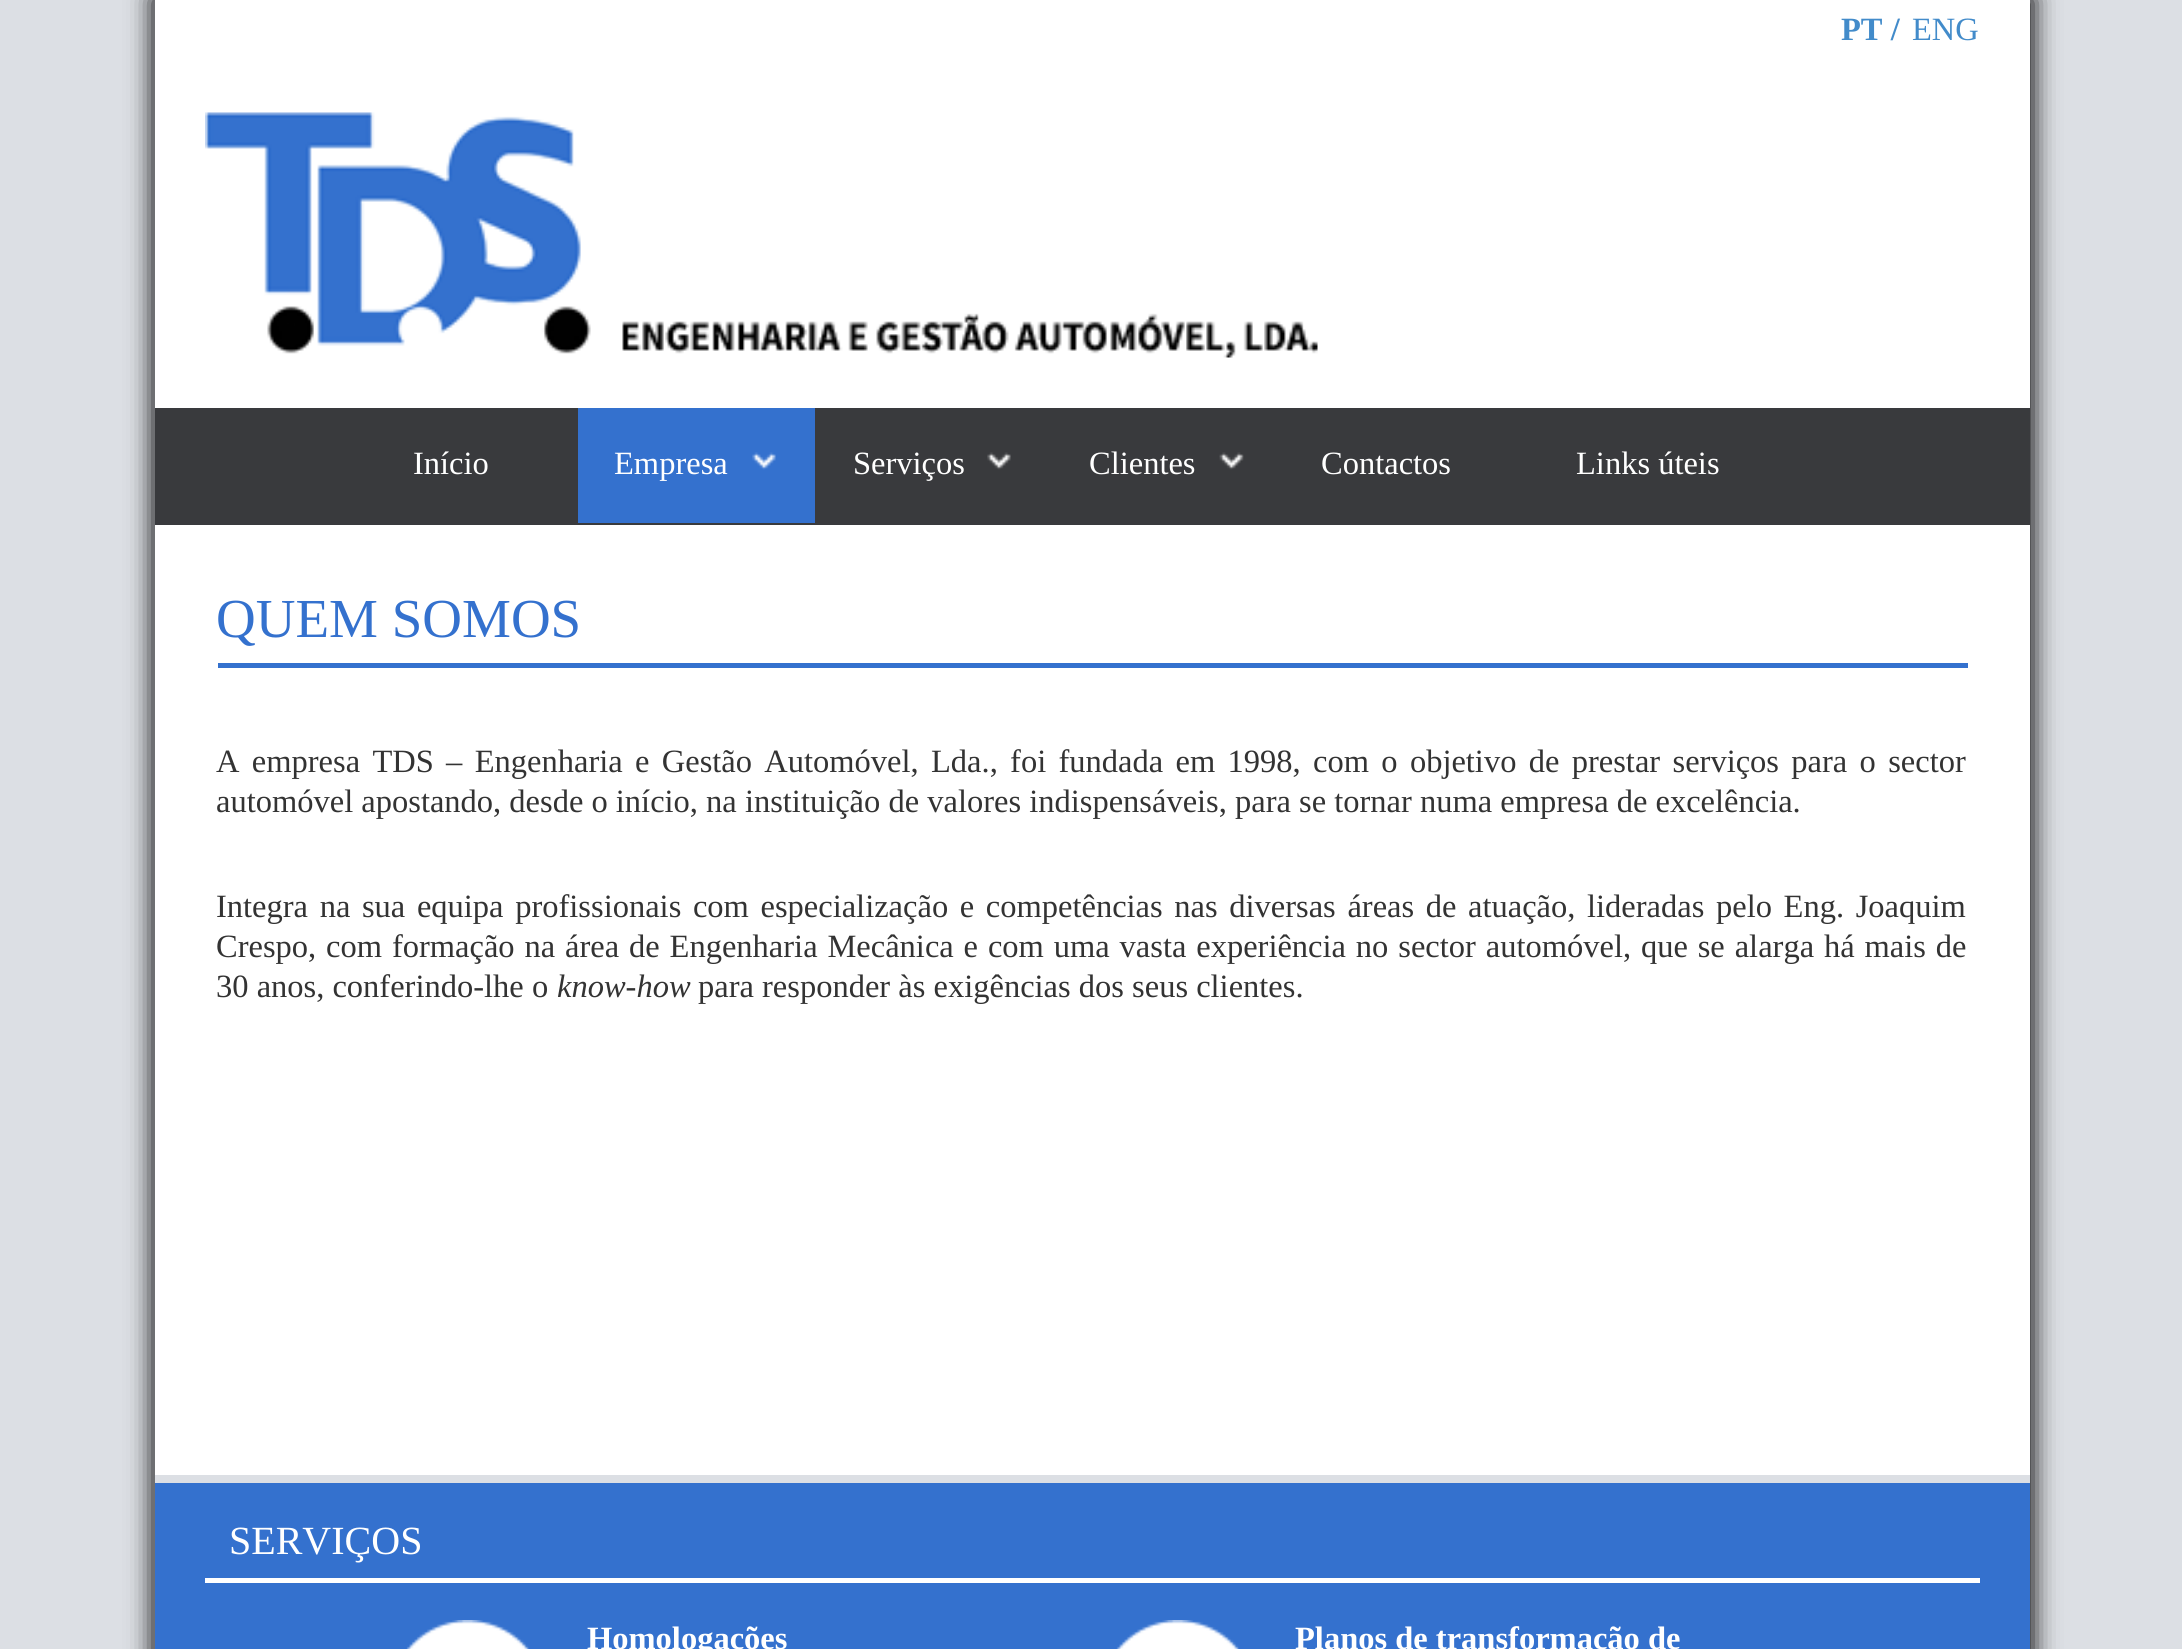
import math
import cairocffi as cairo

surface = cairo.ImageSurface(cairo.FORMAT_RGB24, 2182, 1649)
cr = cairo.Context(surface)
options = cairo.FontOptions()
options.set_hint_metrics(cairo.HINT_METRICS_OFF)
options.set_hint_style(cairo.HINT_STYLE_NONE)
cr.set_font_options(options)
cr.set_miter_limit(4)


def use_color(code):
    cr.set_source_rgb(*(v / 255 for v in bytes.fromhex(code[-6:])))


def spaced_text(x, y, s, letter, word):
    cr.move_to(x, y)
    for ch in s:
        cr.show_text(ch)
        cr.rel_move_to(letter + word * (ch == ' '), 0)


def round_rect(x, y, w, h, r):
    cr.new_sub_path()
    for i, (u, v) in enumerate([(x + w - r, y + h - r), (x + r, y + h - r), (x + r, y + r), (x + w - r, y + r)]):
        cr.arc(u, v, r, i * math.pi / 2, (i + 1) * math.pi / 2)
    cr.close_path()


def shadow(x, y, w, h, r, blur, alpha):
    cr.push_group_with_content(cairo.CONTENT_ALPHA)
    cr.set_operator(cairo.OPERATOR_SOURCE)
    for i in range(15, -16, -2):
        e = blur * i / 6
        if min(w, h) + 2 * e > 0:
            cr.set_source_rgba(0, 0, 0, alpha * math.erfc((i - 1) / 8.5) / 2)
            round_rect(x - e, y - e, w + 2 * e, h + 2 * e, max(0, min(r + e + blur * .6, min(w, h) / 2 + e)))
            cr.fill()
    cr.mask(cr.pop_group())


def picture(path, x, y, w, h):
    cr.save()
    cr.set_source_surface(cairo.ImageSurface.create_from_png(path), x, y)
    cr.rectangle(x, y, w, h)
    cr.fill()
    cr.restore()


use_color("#dcdfe4")
cr.paint()
use_color("#000000")
shadow(153, -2, 1880, 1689, 0, 12.5, 1)
use_color("#ffffff")
cr.rectangle(155, 0, 1875, 1475)
cr.fill()
cr.select_font_face("Liberation Serif", cairo.FONT_SLANT_NORMAL, cairo.FONT_WEIGHT_BOLD)
cr.set_font_size(32.5)
use_color("#428bca")
cr.move_to(1841, 40)
cr.show_text("PT /")
cr.select_font_face("Liberation Serif")
cr.move_to(1912, 40)
cr.show_text("ENG")
picture("img1.png", 205, 112, 1113, 246)
use_color("#393a3d")
cr.rectangle(155, 408, 1875, 117)
cr.fill()
use_color("#ffffff")
cr.move_to(413, 474)
cr.show_text("Início")
use_color("#3471ce")
cr.rectangle(578, 408, 237, 115)
cr.fill()
use_color("#ffffff")
cr.move_to(614, 474)
cr.show_text("Empresa")
picture("img2.png", 752, 452, 24, 18)
cr.move_to(853, 474)
cr.show_text("Serviços")
picture("img3.png", 987, 452, 24, 18)
cr.move_to(1089, 474)
cr.show_text("Clientes")
picture("img4.png", 1219, 452, 25, 18)
cr.move_to(1321, 474)
cr.show_text("Contactos")
cr.move_to(1576, 474)
cr.show_text("Links úteis")
use_color("#3471ce")
cr.rectangle(218, 663, 1750, 5)
cr.fill()
cr.set_font_size(55)
cr.move_to(216, 637)
cr.show_text("QUEM SOMOS")
cr.set_font_size(32.5)
use_color("#333333")
spaced_text(216, 772, "A empresa TDS – Engenharia e Gestão Automóvel, Lda., foi fundada em 1998, com o objetivo de prestar serviços para o sector", 0, 4.2)
cr.move_to(216, 812)
cr.show_text("automóvel apostando, desde o início, na instituição de valores indispensáveis, para se tornar numa empresa de excelência.")
spaced_text(216, 917, "Integra na sua equipa profissionais com especialização e competências nas diversas áreas de atuação, lideradas pelo Eng. Joaquim", 0, 3.5)
spaced_text(216, 957, "Crespo, com formação na área de Engenharia Mecânica e com uma vasta experiência no sector automóvel, que se alarga há mais de", 0, 1.75)
cr.move_to(216, 997)
cr.show_text("30 anos, conferindo-lhe o")
cr.select_font_face("Liberation Serif", cairo.FONT_SLANT_ITALIC)
cr.move_to(557, 997)
cr.show_text("know-how")
cr.select_font_face("Liberation Serif")
cr.move_to(698, 997)
cr.show_text("para responder às exigências dos seus clientes.")
use_color("#3471ce")
cr.rectangle(155, 1483, 1875, 166)
cr.fill()
use_color("#dcdfe4")
cr.rectangle(155, 1475, 1875, 8)
cr.fill()
use_color("#ffffff")
cr.rectangle(205, 1578, 1775, 5)
cr.fill()
cr.set_font_size(40)
cr.move_to(229, 1554)
cr.show_text("SERVIÇOS")
picture("img5.png", 406, 1620, 123, 29)
cr.select_font_face("Liberation Serif", cairo.FONT_SLANT_NORMAL, cairo.FONT_WEIGHT_BOLD)
cr.set_font_size(32.5)
cr.move_to(587, 1649)
cr.show_text("Homologações")
picture("img6.png", 1116, 1620, 123, 29)
cr.move_to(1295, 1649)
cr.show_text("Planos de transformação de")
surface.write_to_png("result.png")
